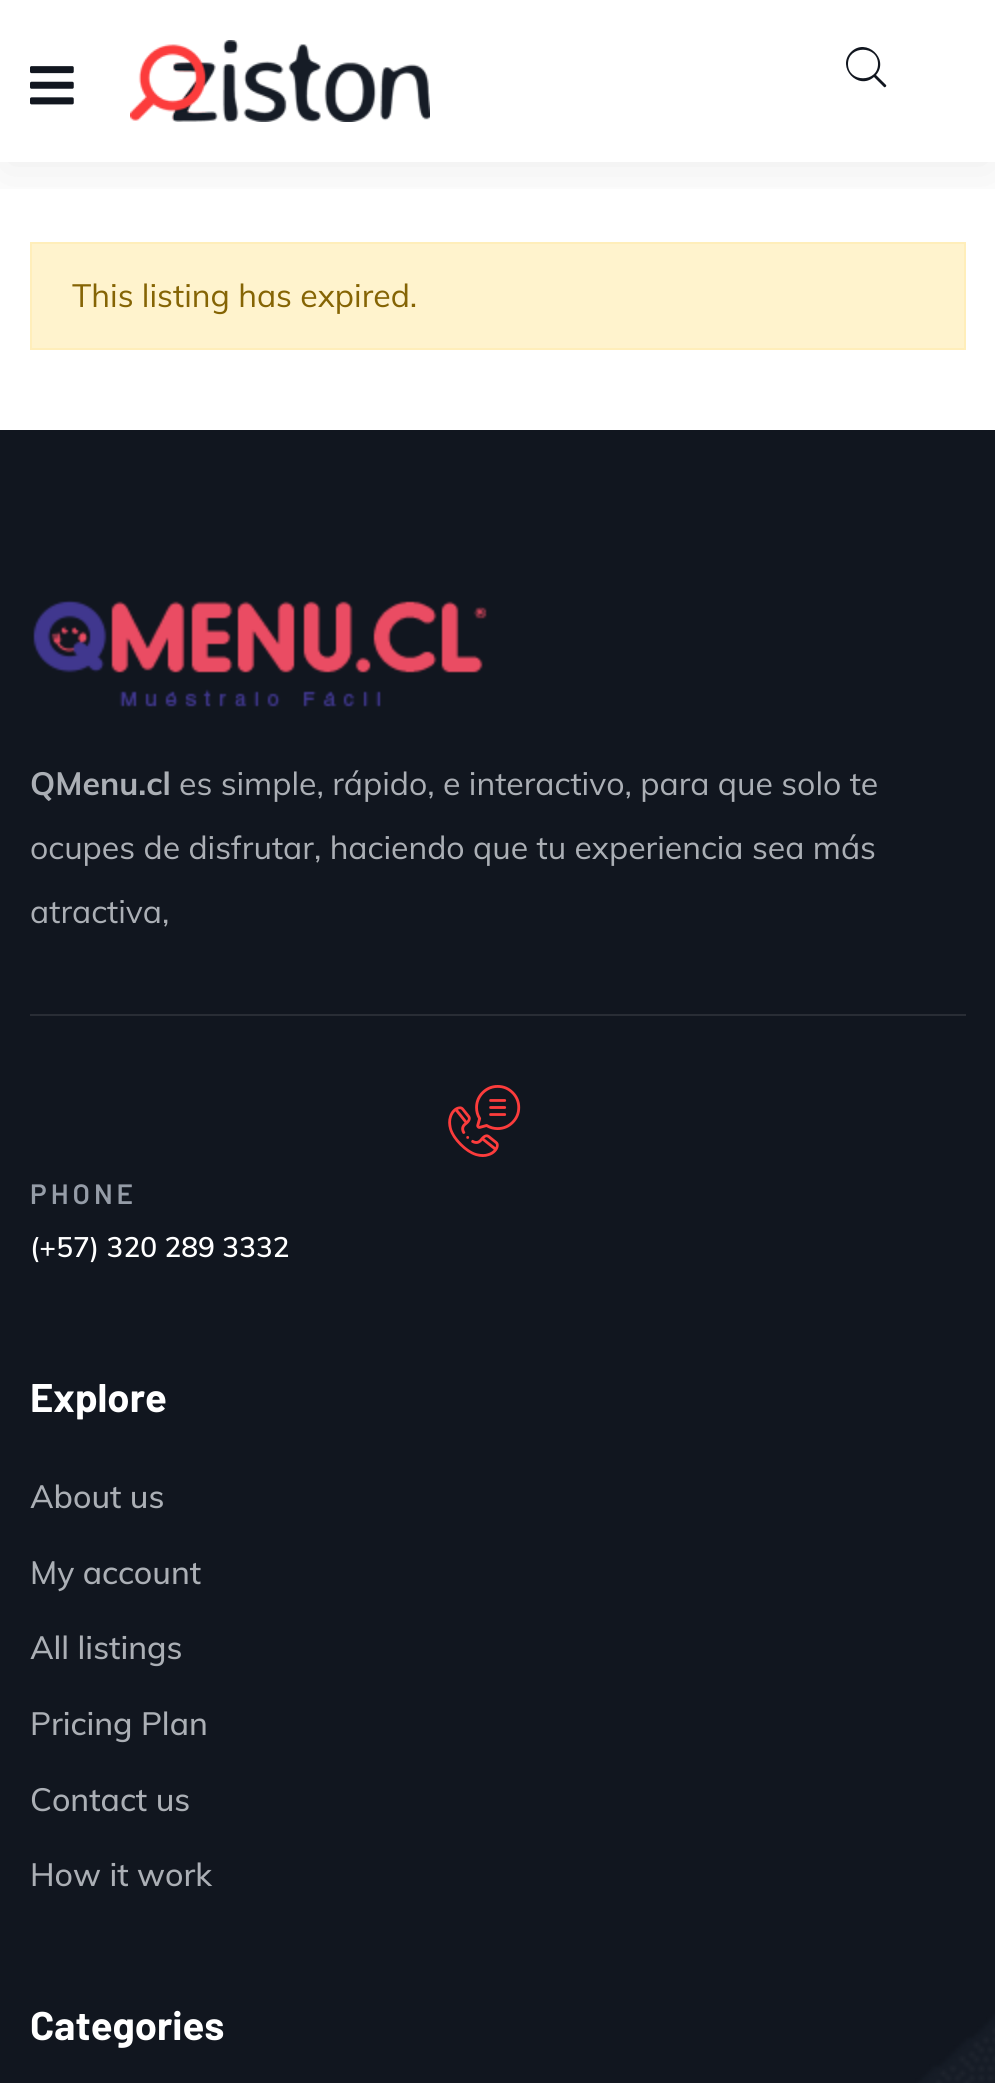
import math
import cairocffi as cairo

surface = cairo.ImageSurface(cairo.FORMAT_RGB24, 995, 2083)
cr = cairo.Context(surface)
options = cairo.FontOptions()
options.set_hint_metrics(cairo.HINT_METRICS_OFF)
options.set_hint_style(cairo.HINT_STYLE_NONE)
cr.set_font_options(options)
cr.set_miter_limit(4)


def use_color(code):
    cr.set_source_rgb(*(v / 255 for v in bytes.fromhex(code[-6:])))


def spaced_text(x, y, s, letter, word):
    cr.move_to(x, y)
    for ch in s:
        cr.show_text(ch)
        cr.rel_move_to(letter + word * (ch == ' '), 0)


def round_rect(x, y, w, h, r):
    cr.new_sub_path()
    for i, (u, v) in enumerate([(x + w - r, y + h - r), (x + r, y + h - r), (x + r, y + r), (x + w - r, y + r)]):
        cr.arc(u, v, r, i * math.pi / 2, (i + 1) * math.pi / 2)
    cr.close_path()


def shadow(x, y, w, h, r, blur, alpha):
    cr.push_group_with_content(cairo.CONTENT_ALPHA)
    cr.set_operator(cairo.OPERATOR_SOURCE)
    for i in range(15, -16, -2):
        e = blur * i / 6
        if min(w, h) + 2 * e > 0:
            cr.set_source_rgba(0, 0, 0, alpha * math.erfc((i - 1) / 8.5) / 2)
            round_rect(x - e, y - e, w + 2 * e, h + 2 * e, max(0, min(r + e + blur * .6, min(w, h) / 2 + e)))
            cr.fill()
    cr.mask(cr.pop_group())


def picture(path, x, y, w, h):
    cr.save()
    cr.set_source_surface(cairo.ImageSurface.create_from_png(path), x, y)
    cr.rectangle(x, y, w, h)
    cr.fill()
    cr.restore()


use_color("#ffffff")
cr.paint()
use_color("#fff3cd")
cr.rectangle(31, 243, 934, 106)
cr.fill_preserve()
use_color("#ffeeba")
cr.stroke()
cr.save()
cr.rectangle(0, 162, 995, 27)
cr.clip()
use_color("#000000")
shadow(0, 10, 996, 162, 0, 30, 0.07)
cr.restore()
picture("img1.png", 30, 66, 44, 39)
picture("img2.png", 130, 40, 300, 82)
use_color("#11161f")
cr.new_path()
cr.move_to(886, 85)
cr.curve_to(887, 86, 885, 88, 884, 87)
cr.line_to(874, 77)
cr.curve_to(858, 91, 836, 67, 851, 52)
cr.curve_to(866, 37, 890, 59, 876, 75)
cr.close_path()
cr.move_to(848, 64)
cr.curve_to(848, 83, 878, 83, 878, 64)
cr.curve_to(878, 45, 848, 45, 848, 64)
cr.close_path()
cr.fill()
cr.select_font_face("Muli")
cr.set_font_size(32)
use_color("#856404")
cr.move_to(72, 307)
cr.show_text("This listing has expired.")
use_color("#161c26")
cr.rectangle(915, 2012, 80, 71)
cr.fill()
picture("img3.png", 0, 430, 995, 1653)
picture("img4.png", 33, 600, 454, 107)
cr.select_font_face("Muli", cairo.FONT_SLANT_NORMAL, cairo.FONT_WEIGHT_BOLD)
use_color("#abafb5")
cr.move_to(30, 795)
cr.show_text("QMenu.cl")
cr.select_font_face("Muli")
cr.move_to(179, 795)
cr.show_text("es simple, rápido, e interactivo, para que solo te")
cr.move_to(30, 859)
cr.show_text("ocupes de disfrutar, haciendo que tu experiencia sea más")
cr.move_to(30, 923)
cr.show_text("atractiva,")
use_color("#292d35")
cr.rectangle(30, 1014, 936, 2)
cr.fill()
picture("img5.png", 448, 1085, 73, 72)
cr.select_font_face("Barlow SemiBold")
cr.set_font_size(28)
use_color("#959ca7")
spaced_text(30, 1204, "PHONE", 4, 0)
cr.select_font_face("Muli SemiBold")
use_color("#ffffff")
cr.move_to(30, 1257)
cr.show_text("(+57) 320 289 3332")
cr.select_font_face("Barlow", cairo.FONT_SLANT_NORMAL, cairo.FONT_WEIGHT_BOLD)
cr.set_font_size(40)
cr.move_to(30, 1412)
cr.show_text("Explore")
cr.select_font_face("Muli Medium")
cr.set_font_size(32)
use_color("#abafb5")
cr.move_to(30, 1508)
cr.show_text("About us")
cr.move_to(30, 1584)
cr.show_text("My account")
cr.move_to(30, 1659)
cr.show_text("All listings")
cr.move_to(30, 1735)
cr.show_text("Pricing Plan")
cr.move_to(30, 1811)
cr.show_text("Contact us")
cr.move_to(30, 1886)
cr.show_text("How it work")
cr.select_font_face("Barlow", cairo.FONT_SLANT_NORMAL, cairo.FONT_WEIGHT_BOLD)
cr.set_font_size(40)
use_color("#ffffff")
cr.move_to(30, 2040)
cr.show_text("Categories")
surface.write_to_png("result.png")
